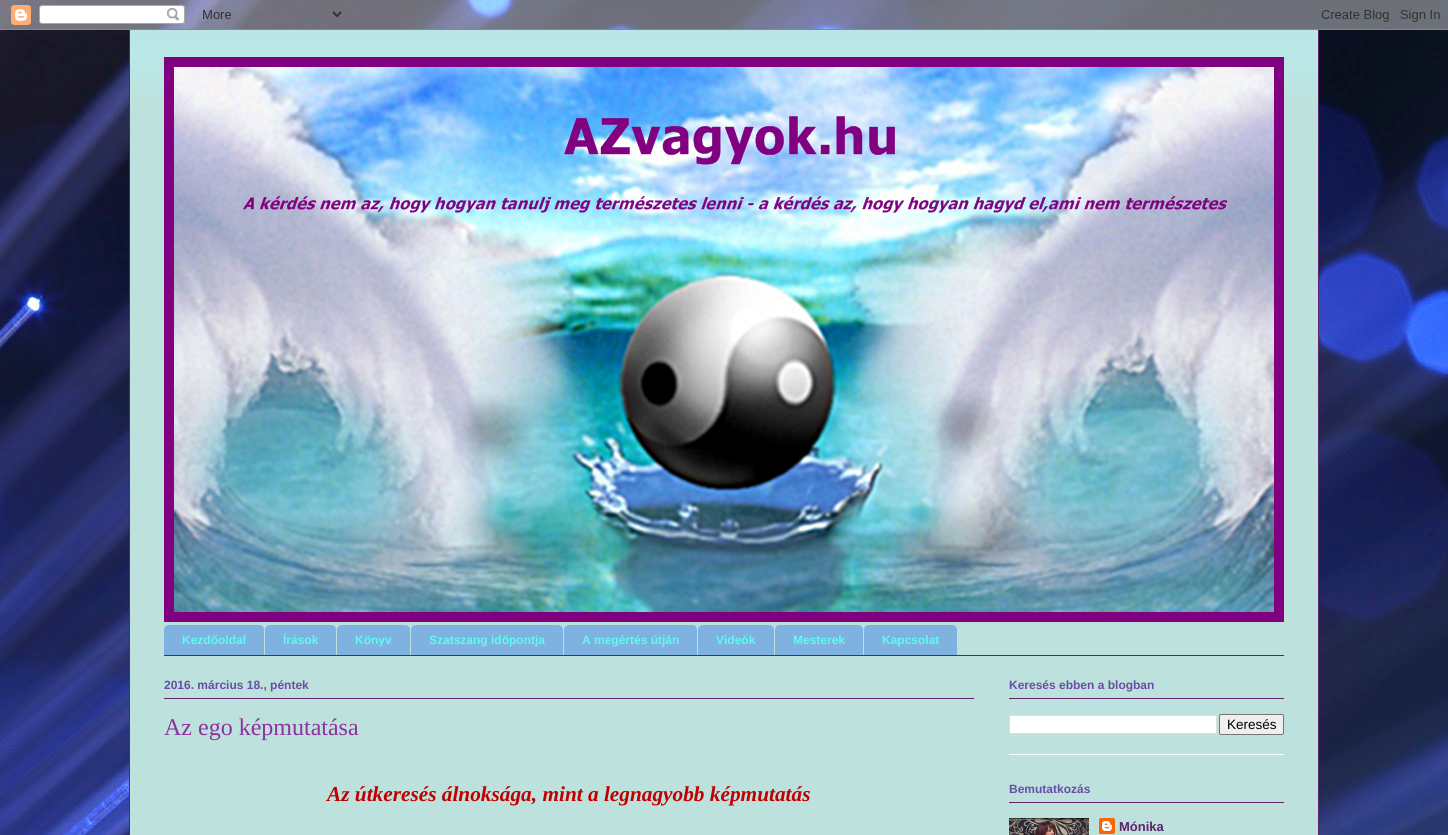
import math
import cairocffi as cairo

surface = cairo.ImageSurface(cairo.FORMAT_RGB24, 1448, 835)
cr = cairo.Context(surface)
options = cairo.FontOptions()
options.set_hint_metrics(cairo.HINT_METRICS_OFF)
options.set_hint_style(cairo.HINT_STYLE_NONE)
cr.set_font_options(options)
cr.set_miter_limit(4)


def use_color(code):
    cr.set_source_rgb(*(v / 255 for v in bytes.fromhex(code[-6:])))


def round_rect(x, y, w, h, r):
    cr.new_sub_path()
    for i, (u, v) in enumerate([(x + w - r, y + h - r), (x + r, y + h - r), (x + r, y + r), (x + w - r, y + r)]):
        cr.arc(u, v, r, i * math.pi / 2, (i + 1) * math.pi / 2)
    cr.close_path()


def picture(path, x, y, w, h):
    cr.save()
    cr.set_source_surface(cairo.ImageSurface.create_from_png(path), x, y)
    cr.rectangle(x, y, w, h)
    cr.fill()
    cr.restore()


use_color("#ffffff")
cr.paint()
picture("img1.png", 0, 0, 1448, 835)
picture("img2.png", 0, 0, 1448, 30)
use_color("#bde1dc")
cr.rectangle(130, 30, 1188, 805)
cr.fill()
picture("img3.png", 130, 30, 1188, 72)
use_color("#5f216a")
cr.rectangle(1318, 30, 1, 805)
cr.fill()
cr.rectangle(129, 30, 1, 805)
cr.fill()
picture("img4.png", 164, 57, 1120, 565)
cr.rectangle(164, 655, 1120, 1)
cr.fill()
use_color("#7fb2e1")
cr.new_path()
cr.move_to(169, 625)
cr.line_to(259, 625)
cr.curve_to(262, 625, 264, 627, 264, 630)
cr.line_to(264, 655)
cr.line_to(164, 655)
cr.line_to(164, 630)
cr.curve_to(164, 627, 166, 625, 169, 625)
cr.close_path()
cr.fill()
cr.select_font_face("Liberation Sans", cairo.FONT_SLANT_NORMAL, cairo.FONT_WEIGHT_BOLD)
cr.set_font_size(12)
use_color("#5ffbec")
cr.move_to(182, 644)
cr.show_text("Kezdőoldal")
use_color("#7fb2e1")
cr.new_path()
cr.move_to(270, 625)
cr.line_to(331, 625)
cr.curve_to(334, 625, 336, 627, 336, 630)
cr.line_to(336, 655)
cr.line_to(265, 655)
cr.line_to(265, 630)
cr.curve_to(265, 627, 267, 625, 270, 625)
cr.close_path()
cr.fill()
use_color("#5ffbec")
cr.move_to(283, 644)
cr.show_text("Írások")
use_color("#7fb2e1")
cr.new_path()
cr.move_to(342, 625)
cr.line_to(405, 625)
cr.curve_to(408, 625, 410, 627, 410, 630)
cr.line_to(410, 655)
cr.line_to(337, 655)
cr.line_to(337, 630)
cr.curve_to(337, 627, 339, 625, 342, 625)
cr.close_path()
cr.fill()
use_color("#5ffbec")
cr.move_to(355, 644)
cr.show_text("Könyv")
use_color("#7fb2e1")
cr.new_path()
cr.move_to(416, 625)
cr.line_to(558, 625)
cr.curve_to(561, 625, 563, 627, 563, 630)
cr.line_to(563, 655)
cr.line_to(411, 655)
cr.line_to(411, 630)
cr.curve_to(411, 627, 413, 625, 416, 625)
cr.close_path()
cr.fill()
use_color("#5ffbec")
cr.move_to(429, 644)
cr.show_text("Szatszang időpontja")
use_color("#7fb2e1")
cr.new_path()
cr.move_to(569, 625)
cr.line_to(692, 625)
cr.curve_to(695, 625, 697, 627, 697, 630)
cr.line_to(697, 655)
cr.line_to(564, 655)
cr.line_to(564, 630)
cr.curve_to(564, 627, 566, 625, 569, 625)
cr.close_path()
cr.fill()
use_color("#5ffbec")
cr.move_to(582, 644)
cr.show_text("A megértés útján")
use_color("#7fb2e1")
cr.new_path()
cr.move_to(703, 625)
cr.line_to(769, 625)
cr.curve_to(772, 625, 774, 627, 774, 630)
cr.line_to(774, 655)
cr.line_to(698, 655)
cr.line_to(698, 630)
cr.curve_to(698, 627, 700, 625, 703, 625)
cr.close_path()
cr.fill()
use_color("#5ffbec")
cr.move_to(716, 644)
cr.show_text("Videók")
use_color("#7fb2e1")
cr.new_path()
cr.move_to(780, 625)
cr.line_to(858, 625)
cr.curve_to(861, 625, 863, 627, 863, 630)
cr.line_to(863, 655)
cr.line_to(775, 655)
cr.line_to(775, 630)
cr.curve_to(775, 627, 777, 625, 780, 625)
cr.close_path()
cr.fill()
use_color("#5ffbec")
cr.move_to(793, 644)
cr.show_text("Mesterek")
use_color("#7fb2e1")
cr.new_path()
cr.move_to(869, 625)
cr.line_to(952, 625)
cr.curve_to(955, 625, 957, 627, 957, 630)
cr.line_to(957, 655)
cr.line_to(864, 655)
cr.line_to(864, 630)
cr.curve_to(864, 627, 866, 625, 869, 625)
cr.close_path()
cr.fill()
use_color("#5ffbec")
cr.move_to(882, 644)
cr.show_text("Kapcsolat")
use_color("#5f216a")
cr.rectangle(164, 698, 810, 1)
cr.fill()
use_color("#674ea7")
cr.move_to(164, 689)
cr.show_text("2016. március 18., péntek")
cr.select_font_face("Liberation Serif")
cr.set_font_size(24)
use_color("#8e319f")
cr.move_to(164, 735)
cr.show_text("Az ego képmutatása")
cr.select_font_face("Liberation Serif", cairo.FONT_SLANT_ITALIC, cairo.FONT_WEIGHT_BOLD)
cr.set_font_size(21.3)
use_color("#c00000")
cr.move_to(327, 801)
cr.show_text("Az útkeresés álnoksága, mint a legnagyobb képmutatás")
use_color("#ffffff")
cr.rectangle(1009, 754, 275, 1)
cr.fill()
use_color("#5f216a")
cr.rectangle(1009, 698, 275, 1)
cr.fill()
cr.select_font_face("Liberation Sans", cairo.FONT_SLANT_NORMAL, cairo.FONT_WEIGHT_BOLD)
cr.set_font_size(12)
use_color("#674ea7")
cr.move_to(1009, 689)
cr.show_text("Keresés ebben a blogban")
use_color("#ffffff")
cr.rectangle(1009.5, 715.5, 207, 18)
cr.fill_preserve()
use_color("#dddddd")
cr.set_line_width(1)
cr.stroke()
use_color("#efefef")
round_rect(1219.5, 714.5, 64, 20, 1.5)
cr.fill_preserve()
use_color("#767676")
cr.stroke()
cr.select_font_face("Liberation Sans")
cr.set_font_size(13.5)
use_color("#000000")
cr.move_to(1227, 729)
cr.show_text("Keresés")
use_color("#5f216a")
cr.rectangle(1009, 802, 275, 1)
cr.fill()
cr.select_font_face("Liberation Sans", cairo.FONT_SLANT_NORMAL, cairo.FONT_WEIGHT_BOLD)
cr.set_font_size(12)
use_color("#674ea7")
cr.move_to(1009, 793)
cr.show_text("Bemutatkozás")
picture("img5.png", 1009, 818, 80, 17)
picture("img6.png", 1099, 818, 16, 16)
cr.set_font_size(13)
use_color("#5f216a")
cr.move_to(1119, 831)
cr.show_text("Mónika")
surface.write_to_png("result.png")
